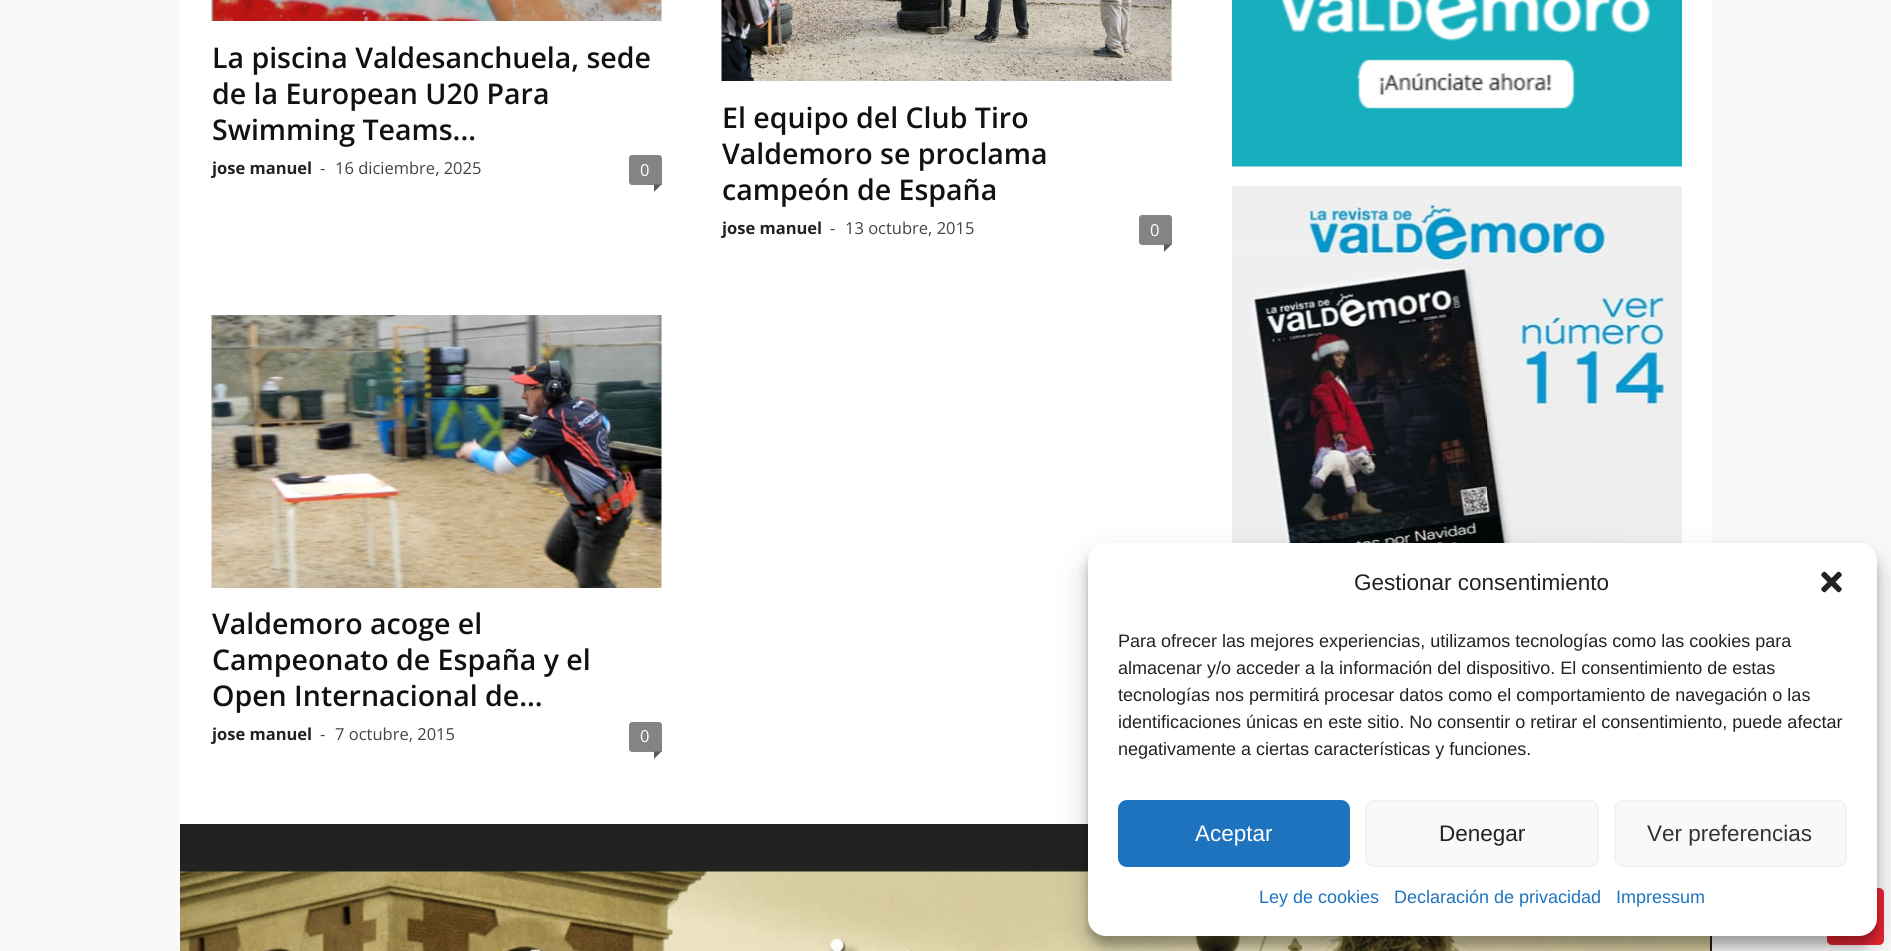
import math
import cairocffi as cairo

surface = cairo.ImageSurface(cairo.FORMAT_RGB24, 1891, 951)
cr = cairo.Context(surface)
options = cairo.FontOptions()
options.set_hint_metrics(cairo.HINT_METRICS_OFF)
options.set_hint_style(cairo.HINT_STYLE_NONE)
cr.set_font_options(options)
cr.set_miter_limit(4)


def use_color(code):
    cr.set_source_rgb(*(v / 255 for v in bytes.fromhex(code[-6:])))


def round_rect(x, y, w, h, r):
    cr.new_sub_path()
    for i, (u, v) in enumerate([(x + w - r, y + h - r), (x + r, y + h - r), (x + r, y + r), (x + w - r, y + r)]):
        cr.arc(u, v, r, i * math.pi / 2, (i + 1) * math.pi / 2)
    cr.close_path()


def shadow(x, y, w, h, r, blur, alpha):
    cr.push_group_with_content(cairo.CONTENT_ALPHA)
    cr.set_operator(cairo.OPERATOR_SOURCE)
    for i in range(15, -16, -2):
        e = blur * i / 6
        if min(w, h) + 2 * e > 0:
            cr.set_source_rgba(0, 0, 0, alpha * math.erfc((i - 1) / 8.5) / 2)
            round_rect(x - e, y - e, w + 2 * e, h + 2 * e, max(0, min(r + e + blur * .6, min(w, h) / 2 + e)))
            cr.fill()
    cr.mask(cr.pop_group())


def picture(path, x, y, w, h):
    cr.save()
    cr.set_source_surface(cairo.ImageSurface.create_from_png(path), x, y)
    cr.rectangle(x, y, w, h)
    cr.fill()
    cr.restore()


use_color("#f9f9f9")
cr.paint()
use_color("#ffffff")
cr.rectangle(180, 0, 1532, 824)
cr.fill()
picture("img1.png", 211, 0, 451, 21)
cr.select_font_face("Open Sans SemiBold")
cr.set_font_size(28.5)
use_color("#111111")
cr.move_to(212, 68)
cr.show_text("La piscina Valdesanchuela, sede")
cr.move_to(212, 104)
cr.show_text("de la European U20 Para")
cr.move_to(212, 140)
cr.show_text("Swimming Teams...")
cr.select_font_face("Open Sans", cairo.FONT_SLANT_NORMAL, cairo.FONT_WEIGHT_BOLD)
cr.set_font_size(16.5)
use_color("#222222")
cr.move_to(212, 174)
cr.show_text("jose manuel")
cr.select_font_face("Open Sans")
use_color("#444444")
cr.move_to(320, 174)
cr.show_text("-")
cr.move_to(335, 174)
cr.show_text("16 diciembre, 2025")
use_color("#848484")
cr.new_path()
cr.move_to(632, 155)
cr.line_to(659, 155)
cr.curve_to(660.5, 155, 662, 156.5, 662, 158)
cr.line_to(662, 185)
cr.line_to(632, 185)
cr.curve_to(630.5, 185, 629, 183.5, 629, 182)
cr.line_to(629, 158)
cr.curve_to(629, 156.5, 630.5, 155, 632, 155)
cr.close_path()
cr.fill()
use_color("#ffffff")
cr.move_to(640, 176)
cr.show_text("0")
use_color("#5b5b5b")
cr.new_path()
cr.move_to(654, 184.5)
cr.line_to(661.5, 184.5)
cr.line_to(654, 192)
cr.close_path()
cr.fill()
picture("img2.png", 721, 0, 451, 81)
cr.select_font_face("Open Sans SemiBold")
cr.set_font_size(28.5)
use_color("#111111")
cr.move_to(722, 128)
cr.show_text("El equipo del Club Tiro")
cr.move_to(722, 164)
cr.show_text("Valdemoro se proclama")
cr.move_to(722, 200)
cr.show_text("campeón de España")
cr.select_font_face("Open Sans", cairo.FONT_SLANT_NORMAL, cairo.FONT_WEIGHT_BOLD)
cr.set_font_size(16.5)
use_color("#222222")
cr.move_to(722, 234)
cr.show_text("jose manuel")
cr.select_font_face("Open Sans")
use_color("#444444")
cr.move_to(830, 234)
cr.show_text("-")
cr.move_to(845, 234)
cr.show_text("13 octubre, 2015")
use_color("#848484")
cr.new_path()
cr.move_to(1142, 215)
cr.line_to(1169, 215)
cr.curve_to(1170.5, 215, 1172, 216.5, 1172, 218)
cr.line_to(1172, 245)
cr.line_to(1142, 245)
cr.curve_to(1140.5, 245, 1139, 243.5, 1139, 242)
cr.line_to(1139, 218)
cr.curve_to(1139, 216.5, 1140.5, 215, 1142, 215)
cr.close_path()
cr.fill()
use_color("#ffffff")
cr.move_to(1150, 236)
cr.show_text("0")
use_color("#5b5b5b")
cr.new_path()
cr.move_to(1164, 244.5)
cr.line_to(1171.5, 244.5)
cr.line_to(1164, 252)
cr.close_path()
cr.fill()
picture("img3.png", 211, 315, 451, 273)
cr.select_font_face("Open Sans SemiBold")
cr.set_font_size(28.5)
use_color("#111111")
cr.move_to(212, 634)
cr.show_text("Valdemoro acoge el")
cr.move_to(212, 670)
cr.show_text("Campeonato de España y el")
cr.move_to(212, 706)
cr.show_text("Open Internacional de...")
cr.select_font_face("Open Sans", cairo.FONT_SLANT_NORMAL, cairo.FONT_WEIGHT_BOLD)
cr.set_font_size(16.5)
use_color("#222222")
cr.move_to(212, 740)
cr.show_text("jose manuel")
cr.select_font_face("Open Sans")
use_color("#444444")
cr.move_to(320, 740)
cr.show_text("-")
cr.move_to(335, 740)
cr.show_text("7 octubre, 2015")
use_color("#848484")
cr.new_path()
cr.move_to(632, 722)
cr.line_to(659, 722)
cr.curve_to(660.5, 722, 662, 723.5, 662, 725)
cr.line_to(662, 752)
cr.line_to(632, 752)
cr.curve_to(630.5, 752, 629, 750.5, 629, 749)
cr.line_to(629, 725)
cr.curve_to(629, 723.5, 630.5, 722, 632, 722)
cr.close_path()
cr.fill()
use_color("#ffffff")
cr.move_to(640, 742)
cr.show_text("0")
use_color("#5b5b5b")
cr.new_path()
cr.move_to(654, 751.5)
cr.line_to(661.5, 751.5)
cr.line_to(654, 759)
cr.close_path()
cr.fill()
picture("img4.png", 1232, 0, 450, 167)
picture("img5.png", 1232, 186, 450, 357)
use_color("#222222")
cr.rectangle(180, 824, 1532, 127)
cr.fill()
picture("img6.png", 180, 871, 1530, 80)
use_color("#e72532")
round_rect(1827, 888, 57, 57, 5)
cr.fill()
use_color("#000000")
shadow(1088, 552, 789, 393, 18, 4.5, 0.23)
shadow(1088, 558, 789, 393, 18, 15, 0.19)
use_color("#ffffff")
round_rect(1088, 543, 789, 393, 18)
cr.fill()
cr.select_font_face("Liberation Sans")
cr.set_font_size(22.5)
use_color("#222222")
cr.move_to(1354, 590)
cr.show_text("Gestionar consentimiento")
picture("img7.png", 1821, 571, 21, 22)
cr.set_font_size(18)
cr.move_to(1118, 647)
cr.show_text("Para ofrecer las mejores experiencias, utilizamos tecnologías como las cookies para")
cr.move_to(1118, 674)
cr.show_text("almacenar y/o acceder a la información del dispositivo. El consentimiento de estas")
cr.move_to(1118, 701)
cr.show_text("tecnologías nos permitirá procesar datos como el comportamiento de navegación o las")
cr.move_to(1118, 728)
cr.show_text("identificaciones únicas en este sitio. No consentir o retirar el consentimiento, puede afectar")
cr.move_to(1118, 755)
cr.show_text("negativamente a ciertas características y funciones.")
use_color("#1e73be")
round_rect(1119, 801, 230, 65, 8)
cr.fill_preserve()
cr.stroke()
cr.set_font_size(22.5)
use_color("#ffffff")
cr.move_to(1195, 841)
cr.show_text("Aceptar")
use_color("#f9f9f9")
round_rect(1366, 801, 232, 65, 8)
cr.fill_preserve()
use_color("#f2f2f2")
cr.stroke()
use_color("#222222")
cr.move_to(1439, 841)
cr.show_text("Denegar")
use_color("#f9f9f9")
round_rect(1615, 801, 231, 65, 8)
cr.fill_preserve()
use_color("#f2f2f2")
cr.stroke()
use_color("#333333")
cr.move_to(1647, 841)
cr.show_text("Ver preferencias")
cr.set_font_size(18)
use_color("#1e73be")
cr.move_to(1259, 903)
cr.show_text("Ley de cookies")
cr.move_to(1394, 903)
cr.show_text("Declaración de privacidad")
cr.move_to(1616, 903)
cr.show_text("Impressum")
surface.write_to_png("result.png")
